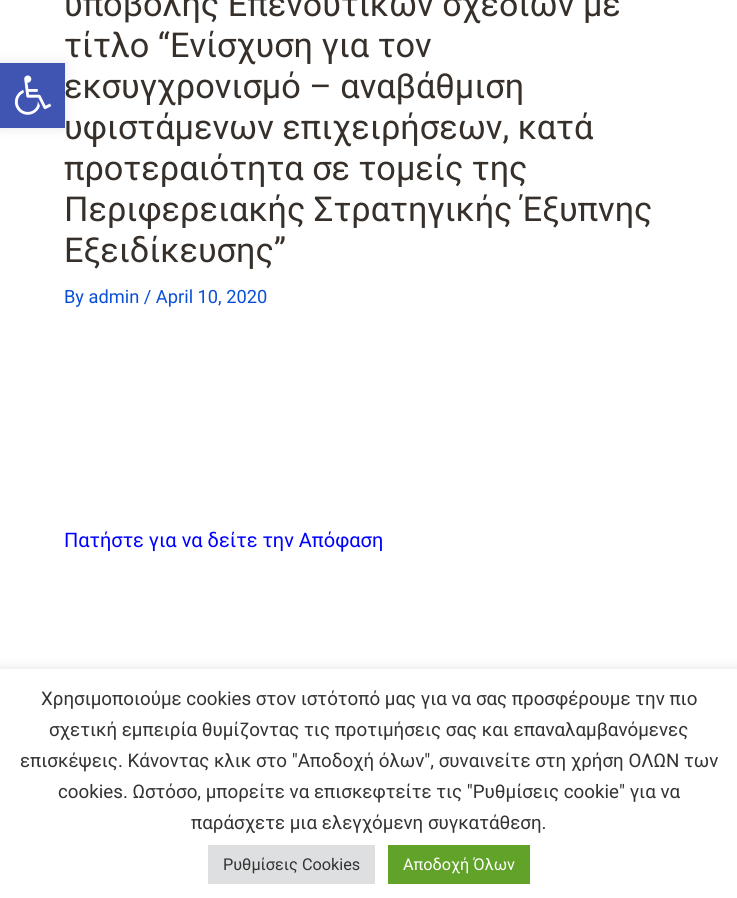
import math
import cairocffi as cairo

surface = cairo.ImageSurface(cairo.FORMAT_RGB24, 737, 898)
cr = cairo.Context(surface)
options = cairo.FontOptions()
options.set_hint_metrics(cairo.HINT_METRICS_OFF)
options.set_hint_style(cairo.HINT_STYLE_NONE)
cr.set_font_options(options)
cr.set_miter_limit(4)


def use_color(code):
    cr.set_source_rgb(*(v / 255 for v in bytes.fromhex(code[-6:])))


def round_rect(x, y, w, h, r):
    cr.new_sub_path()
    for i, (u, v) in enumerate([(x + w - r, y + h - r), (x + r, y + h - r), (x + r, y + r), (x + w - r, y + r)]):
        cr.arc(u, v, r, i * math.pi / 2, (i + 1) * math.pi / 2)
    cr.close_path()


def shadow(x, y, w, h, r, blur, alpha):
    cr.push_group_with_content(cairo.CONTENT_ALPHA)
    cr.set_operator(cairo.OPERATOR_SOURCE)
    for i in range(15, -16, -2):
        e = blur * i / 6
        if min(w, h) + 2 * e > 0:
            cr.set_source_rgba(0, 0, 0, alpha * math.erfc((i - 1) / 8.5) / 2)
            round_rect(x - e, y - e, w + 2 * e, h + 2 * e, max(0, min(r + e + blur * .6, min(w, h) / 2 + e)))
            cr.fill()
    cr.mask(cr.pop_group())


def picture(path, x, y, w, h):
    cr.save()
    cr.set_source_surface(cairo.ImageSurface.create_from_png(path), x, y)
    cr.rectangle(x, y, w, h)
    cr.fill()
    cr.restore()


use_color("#ffffff")
cr.paint()
use_color("#000000")
shadow(0, 63, 65, 65, 0, 6, 0.1)
use_color("#4054b2")
cr.rectangle(0, 63, 65, 65)
cr.fill()
picture("img1.png", 14, 75, 38, 40)
cr.select_font_face("Roboto")
cr.set_font_size(34.25)
use_color("#37302a")
cr.move_to(64, 16)
cr.show_text("υποβολής Επενδυτικών σχεδίων με")
cr.move_to(64, 57)
cr.show_text("τίτλο “Ενίσχυση για τον")
cr.move_to(64, 98)
cr.show_text("εκσυγχρονισμό – αναβάθμιση")
cr.move_to(64, 139)
cr.show_text("υφιστάμενων επιχειρήσεων, κατά")
cr.move_to(64, 180)
cr.show_text("προτεραιότητα σε τομείς της")
cr.move_to(64, 221)
cr.show_text("Περιφερειακής Στρατηγικής Έξυπνης")
cr.move_to(64, 262)
cr.show_text("Εξειδίκευσης”")
cr.set_font_size(18.25)
use_color("#0a4fd9")
cr.move_to(64, 303)
cr.show_text("By admin / April 10, 2020")
cr.set_font_size(20)
use_color("#0000ff")
cr.move_to(64, 547)
cr.show_text("Πατήστε για να δείτε την Απόφαση")
use_color("#acabab")
shadow(0, 668, 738, 230, 0, 6, 0.3)
use_color("#ffffff")
cr.rectangle(0, 669, 737, 229)
cr.fill()
cr.set_font_size(18.75)
use_color("#333333")
cr.move_to(41, 705)
cr.show_text("Χρησιμοποιούμε cookies στον ιστότοπό μας για να σας προσφέρουμε την πιο")
cr.move_to(49, 736)
cr.show_text("σχετική εμπειρία θυμίζοντας τις προτιμήσεις σας και επαναλαμβανόμενες")
cr.move_to(20, 767)
cr.show_text("επισκέψεις. Κάνοντας κλικ στο \"Αποδοχή όλων\", συναινείτε στη χρήση ΟΛΩΝ των")
cr.move_to(58, 798)
cr.show_text("cookies. Ωστόσο, μπορείτε να επισκεφτείτε τις \"Ρυθμίσεις cookie\" για να")
cr.move_to(191, 829)
cr.show_text("παράσχετε μια ελεγχόμενη συγκατάθεση.")
use_color("#dedfe0")
cr.rectangle(208, 845, 167, 39)
cr.fill()
cr.set_font_size(16.25)
use_color("#333333")
cr.move_to(223, 870)
cr.show_text("Ρυθμίσεις Cookies")
use_color("#61a229")
cr.rectangle(388, 845, 142, 39)
cr.fill()
use_color("#ffffff")
cr.move_to(403, 870)
cr.show_text("Αποδοχή Όλων")
surface.write_to_png("result.png")
